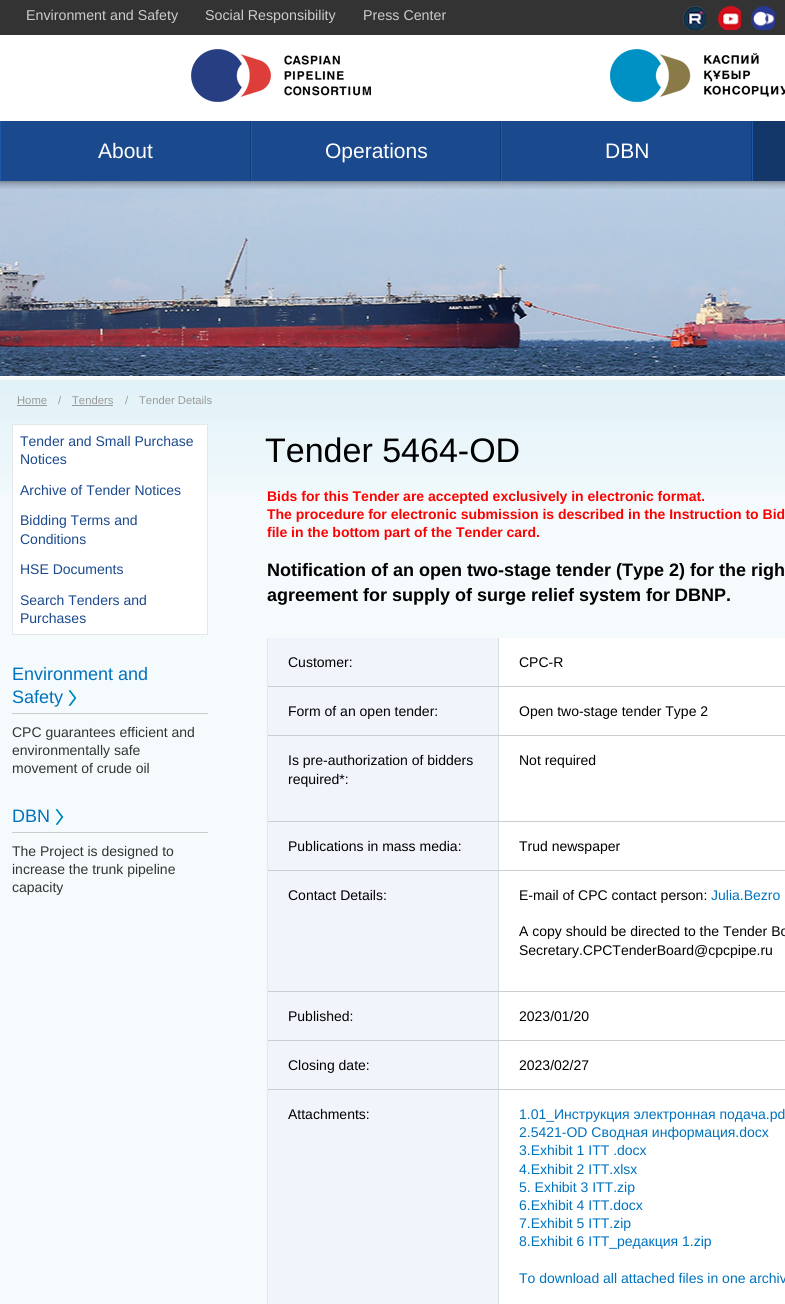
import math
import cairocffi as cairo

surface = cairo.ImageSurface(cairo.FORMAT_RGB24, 785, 1304)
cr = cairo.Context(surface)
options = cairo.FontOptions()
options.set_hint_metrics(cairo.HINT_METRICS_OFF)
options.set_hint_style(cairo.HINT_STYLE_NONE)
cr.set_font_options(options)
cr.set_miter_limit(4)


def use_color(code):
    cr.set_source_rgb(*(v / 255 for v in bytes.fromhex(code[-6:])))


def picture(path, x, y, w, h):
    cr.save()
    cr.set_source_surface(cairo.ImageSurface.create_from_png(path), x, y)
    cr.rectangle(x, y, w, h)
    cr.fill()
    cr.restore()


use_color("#f5fbfd")
cr.paint()
picture("img1.png", 0, 35, 785, 458)
use_color("#333333")
cr.rectangle(0, 0, 785, 35)
cr.fill()
cr.select_font_face("Liberation Sans")
cr.set_font_size(14.25)
use_color("#cccccc")
cr.move_to(26, 20)
cr.show_text("Environment and Safety")
cr.move_to(205, 20)
cr.show_text("Social Responsibility")
cr.move_to(363, 20)
cr.show_text("Press Center")
picture("img2.png", 683, 6, 23, 24)
picture("img3.png", 718, 6, 23, 24)
picture("img4.png", 751, 6, 24, 24)
picture("img5.png", 191, 49, 594, 53)
use_color("#1a498d")
cr.rectangle(1, 121, 750, 60)
cr.fill()
use_color("#1f58a4")
cr.rectangle(0, 121, 1, 60)
cr.fill()
cr.set_font_size(21)
use_color("#ffffff")
cr.move_to(98, 158)
cr.show_text("About")
use_color("#153a76")
cr.rectangle(250, 121, 1, 60)
cr.fill()
use_color("#1f58a4")
cr.rectangle(251, 121, 1, 60)
cr.fill()
use_color("#ffffff")
cr.move_to(325, 158)
cr.show_text("Operations")
use_color("#153a76")
cr.rectangle(500, 121, 1, 60)
cr.fill()
use_color("#1f58a4")
cr.rectangle(501, 121, 1, 60)
cr.fill()
use_color("#ffffff")
cr.move_to(605, 158)
cr.show_text("DBN")
use_color("#153a76")
cr.rectangle(751, 121, 1, 60)
cr.fill()
use_color("#133769")
cr.rectangle(753, 121, 32, 60)
cr.fill()
use_color("#1f58a4")
cr.rectangle(752, 121, 1, 60)
cr.fill()
picture("img7.png", 0, 181, 785, 195)
picture("img6.png", 0, 181, 785, 8)
cr.set_font_size(11.25)
use_color("#999999")
cr.move_to(17, 404)
cr.show_text("Home")
cr.rectangle(17, 405, 30, 1)
cr.fill()
cr.move_to(58, 404)
cr.show_text("/")
cr.move_to(72, 404)
cr.show_text("Tenders")
cr.rectangle(72, 405, 41, 1)
cr.fill()
cr.move_to(125, 404)
cr.show_text("/")
cr.move_to(139, 404)
cr.show_text("Tender Details")
use_color("#ffffff")
cr.rectangle(12.5, 424.5, 195, 210)
cr.fill_preserve()
use_color("#e2e9ec")
cr.set_line_width(1)
cr.stroke()
cr.set_font_size(14)
use_color("#1a498d")
cr.move_to(20, 446)
cr.show_text("Tender and Small Purchase")
cr.move_to(20, 464)
cr.show_text("Notices")
cr.move_to(20, 495)
cr.show_text("Archive of Tender Notices")
cr.move_to(20, 525)
cr.show_text("Bidding Terms and")
cr.move_to(20, 544)
cr.show_text("Conditions")
cr.move_to(20, 574)
cr.show_text("HSE Documents")
cr.move_to(20, 605)
cr.show_text("Search Tenders and")
cr.move_to(20, 623)
cr.show_text("Purchases")
use_color("#cccccc")
cr.rectangle(12, 713, 196, 1)
cr.fill()
cr.set_font_size(18)
use_color("#0072bc")
cr.move_to(12, 680)
cr.show_text("Environment and")
cr.move_to(12, 703)
cr.show_text("Safety")
picture("img8.png", 68, 690, 9, 16)
cr.set_font_size(14)
use_color("#333333")
cr.move_to(12, 737)
cr.show_text("CPC guarantees efficient and")
cr.move_to(12, 755)
cr.show_text("environmentally safe")
cr.move_to(12, 773)
cr.show_text("movement of crude oil")
use_color("#cccccc")
cr.rectangle(12, 832, 196, 1)
cr.fill()
cr.set_font_size(18)
use_color("#0072bc")
cr.move_to(12, 822)
cr.show_text("DBN")
picture("img8.png", 55, 809, 9, 16)
cr.set_font_size(14)
use_color("#333333")
cr.move_to(12, 856)
cr.show_text("The Project is designed to")
cr.move_to(12, 874)
cr.show_text("increase the trunk pipeline")
cr.move_to(12, 892)
cr.show_text("capacity")
cr.set_font_size(34)
use_color("#000000")
cr.move_to(265, 462)
cr.show_text("Tender 5464-OD")
cr.select_font_face("Liberation Sans", cairo.FONT_SLANT_NORMAL, cairo.FONT_WEIGHT_BOLD)
cr.set_font_size(14)
use_color("#ff0000")
cr.move_to(267, 501)
cr.show_text("Bids for this Tender are accepted exclusively in electronic format.")
cr.move_to(267, 519)
cr.show_text("The procedure for electronic submission is described in the Instruction to Bid")
cr.move_to(267, 537)
cr.show_text("file in the bottom part of the Tender card.")
cr.set_font_size(18)
use_color("#000000")
cr.move_to(267, 576)
cr.show_text("Notification of an open two-stage tender (Type 2) for the righ")
cr.move_to(267, 601)
cr.show_text("agreement for supply of surge relief system for DBNP.")
use_color("#e5ebec")
cr.rectangle(267, 638, 1, 666)
cr.fill()
use_color("#f1f5fb")
cr.rectangle(268, 638, 230, 48)
cr.fill()
use_color("#cacfd1")
cr.rectangle(268, 686, 517, 1)
cr.fill()
cr.select_font_face("Liberation Sans")
cr.set_font_size(14)
use_color("#000000")
cr.move_to(288, 667)
cr.show_text("Customer:")
use_color("#ffffff")
cr.rectangle(499, 638, 286, 48)
cr.fill()
use_color("#d8ddde")
cr.rectangle(498, 638, 1, 48)
cr.fill()
use_color("#000000")
cr.move_to(519, 667)
cr.show_text("CPC-R")
use_color("#f1f5fb")
cr.rectangle(268, 687, 230, 48)
cr.fill()
use_color("#cacfd1")
cr.rectangle(268, 735, 517, 1)
cr.fill()
use_color("#000000")
cr.move_to(288, 716)
cr.show_text("Form of an open tender:")
use_color("#ffffff")
cr.rectangle(499, 687, 286, 48)
cr.fill()
use_color("#d8ddde")
cr.rectangle(498, 687, 1, 48)
cr.fill()
use_color("#000000")
cr.move_to(519, 716)
cr.show_text("Open two-stage tender Type 2")
use_color("#f1f5fb")
cr.rectangle(268, 736, 230, 85)
cr.fill()
use_color("#cacfd1")
cr.rectangle(268, 821, 517, 1)
cr.fill()
use_color("#000000")
cr.move_to(288, 765)
cr.show_text("Is pre-authorization of bidders")
cr.move_to(288, 784)
cr.show_text("required*:")
use_color("#ffffff")
cr.rectangle(499, 736, 286, 85)
cr.fill()
use_color("#d8ddde")
cr.rectangle(498, 736, 1, 85)
cr.fill()
use_color("#000000")
cr.move_to(519, 765)
cr.show_text("Not required")
use_color("#f1f5fb")
cr.rectangle(268, 822, 230, 48)
cr.fill()
use_color("#cacfd1")
cr.rectangle(268, 870, 517, 1)
cr.fill()
use_color("#000000")
cr.move_to(288, 851)
cr.show_text("Publications in mass media:")
use_color("#ffffff")
cr.rectangle(499, 822, 286, 48)
cr.fill()
use_color("#d8ddde")
cr.rectangle(498, 822, 1, 48)
cr.fill()
use_color("#000000")
cr.move_to(519, 851)
cr.show_text("Trud newspaper")
use_color("#f1f5fb")
cr.rectangle(268, 871, 230, 120)
cr.fill()
use_color("#cacfd1")
cr.rectangle(268, 991, 517, 1)
cr.fill()
use_color("#000000")
cr.move_to(288, 900)
cr.show_text("Contact Details:")
use_color("#ffffff")
cr.rectangle(499, 871, 286, 120)
cr.fill()
use_color("#d8ddde")
cr.rectangle(498, 871, 1, 120)
cr.fill()
use_color("#000000")
cr.move_to(519, 900)
cr.show_text("E-mail of CPC contact person:")
use_color("#0072bc")
cr.move_to(711, 900)
cr.show_text("Julia.Bezro")
use_color("#000000")
cr.move_to(519, 936)
cr.show_text("A copy should be directed to the Tender Bo")
cr.move_to(519, 955)
cr.show_text("Secretary.CPCTenderBoard@cpcpipe.ru")
use_color("#f1f5fb")
cr.rectangle(268, 992, 230, 48)
cr.fill()
use_color("#cacfd1")
cr.rectangle(268, 1040, 517, 1)
cr.fill()
use_color("#000000")
cr.move_to(288, 1021)
cr.show_text("Published:")
use_color("#ffffff")
cr.rectangle(499, 992, 286, 48)
cr.fill()
use_color("#d8ddde")
cr.rectangle(498, 992, 1, 48)
cr.fill()
use_color("#000000")
cr.move_to(519, 1021)
cr.show_text("2023/01/20")
use_color("#f1f5fb")
cr.rectangle(268, 1041, 230, 48)
cr.fill()
use_color("#cacfd1")
cr.rectangle(268, 1089, 517, 1)
cr.fill()
use_color("#000000")
cr.move_to(288, 1070)
cr.show_text("Closing date:")
use_color("#ffffff")
cr.rectangle(499, 1041, 286, 48)
cr.fill()
use_color("#d8ddde")
cr.rectangle(498, 1041, 1, 48)
cr.fill()
use_color("#000000")
cr.move_to(519, 1070)
cr.show_text("2023/02/27")
use_color("#f1f5fb")
cr.rectangle(268, 1090, 230, 214)
cr.fill()
use_color("#000000")
cr.move_to(288, 1119)
cr.show_text("Attachments:")
use_color("#ffffff")
cr.rectangle(499, 1090, 286, 214)
cr.fill()
use_color("#d8ddde")
cr.rectangle(498, 1090, 1, 214)
cr.fill()
use_color("#0072bc")
cr.move_to(519, 1119)
cr.show_text("1.01_Инструкция электронная подача.pd")
cr.move_to(519, 1137)
cr.show_text("2.5421-OD Сводная информация.docx")
cr.move_to(519, 1155)
cr.show_text("3.Exhibit 1 ITT .docx")
cr.move_to(519, 1174)
cr.show_text("4.Exhibit 2 ITT.xlsx")
cr.move_to(519, 1192)
cr.show_text("5. Exhibit 3 ITT.zip")
cr.move_to(519, 1210)
cr.show_text("6.Exhibit 4 ITT.docx")
cr.move_to(519, 1228)
cr.show_text("7.Exhibit 5 ITT.zip")
cr.move_to(519, 1246)
cr.show_text("8.Exhibit 6 ITT_редакция 1.zip")
cr.move_to(519, 1283)
cr.show_text("To download all attached files in one archiv")
surface.write_to_png("result.png")
